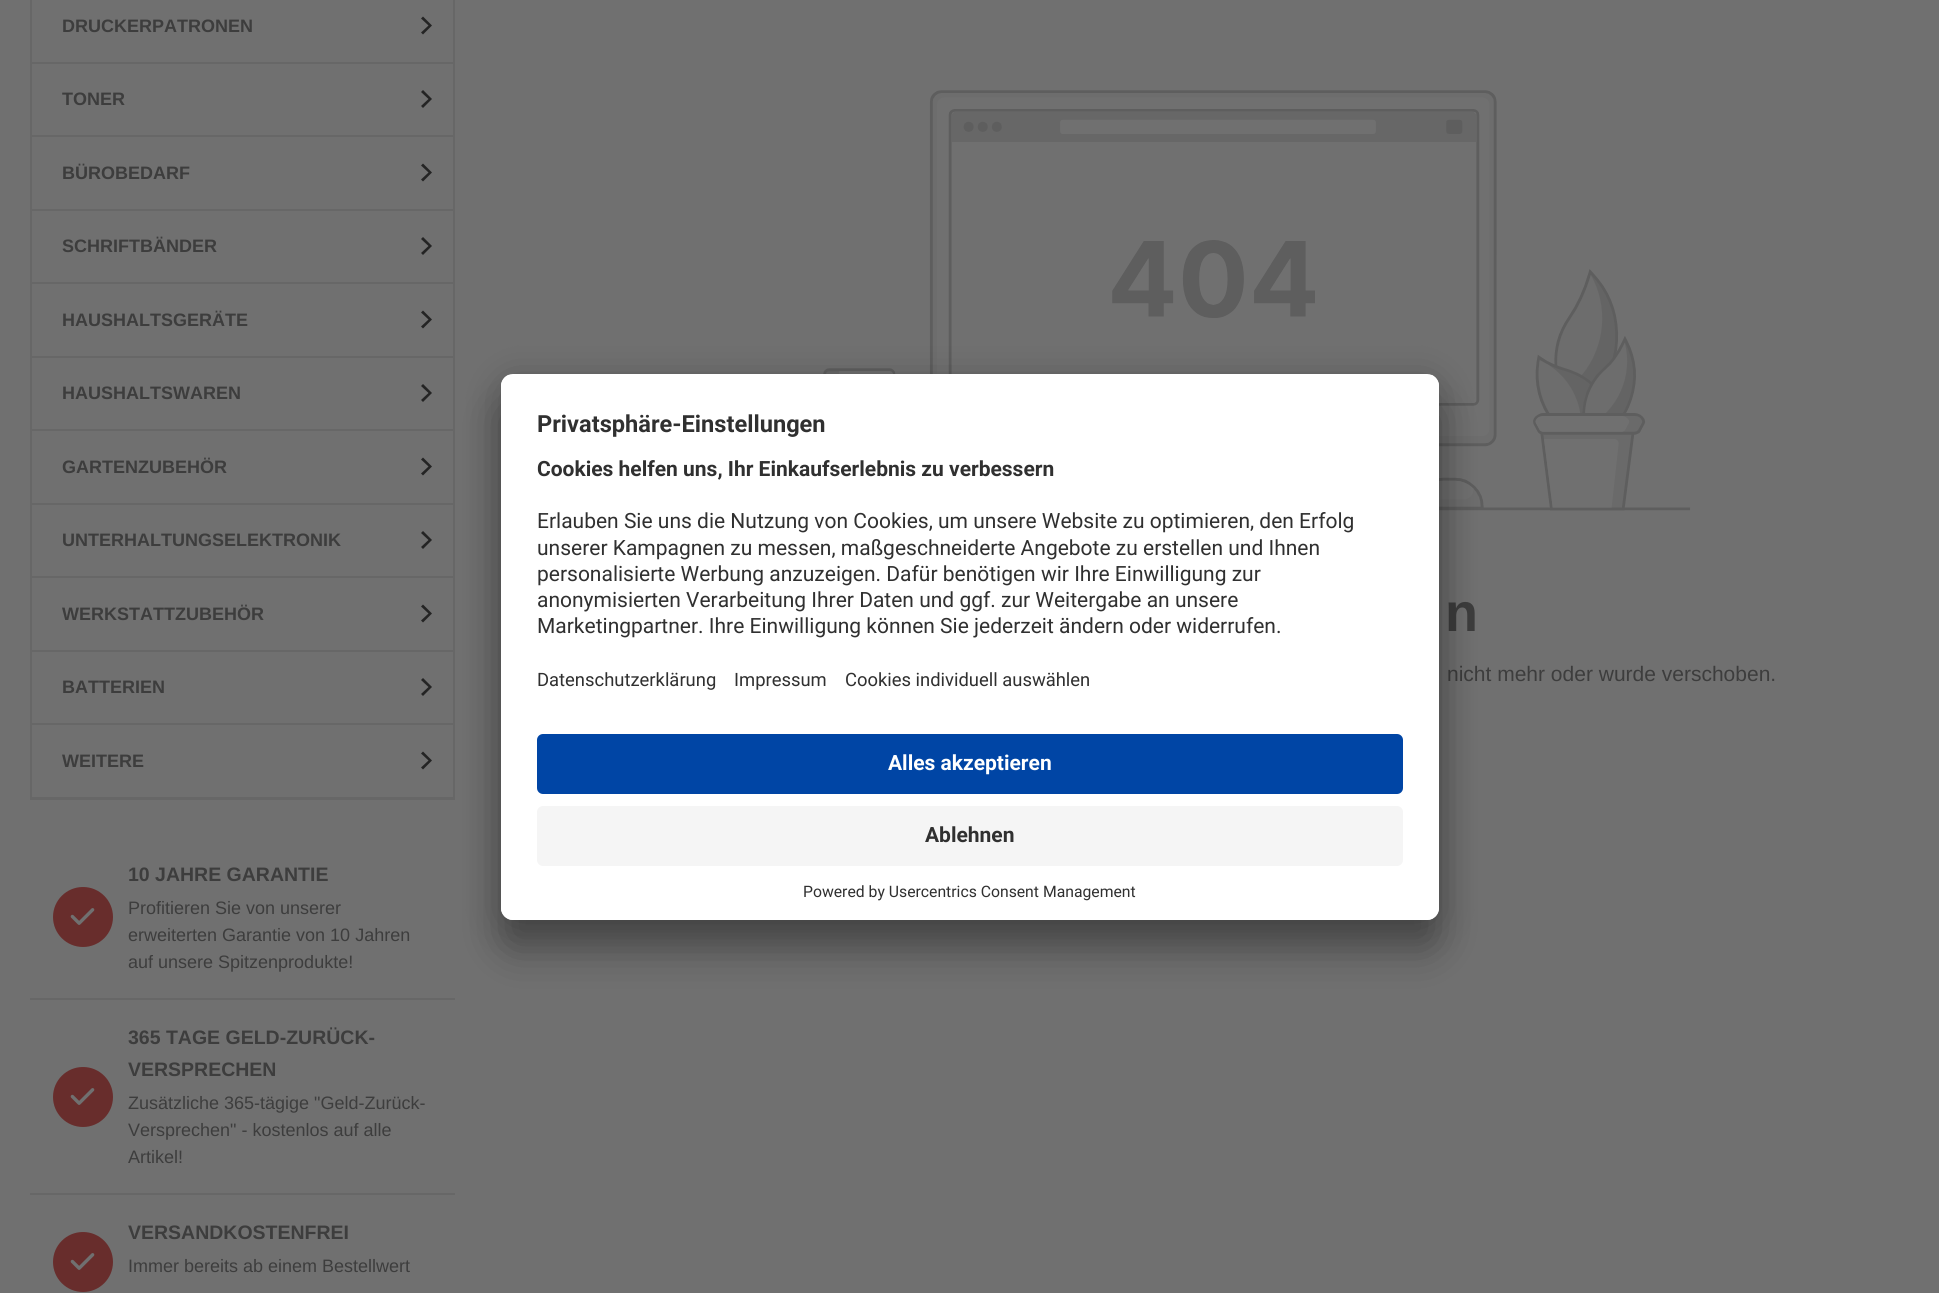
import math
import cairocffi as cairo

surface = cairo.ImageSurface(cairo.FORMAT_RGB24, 1939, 1293)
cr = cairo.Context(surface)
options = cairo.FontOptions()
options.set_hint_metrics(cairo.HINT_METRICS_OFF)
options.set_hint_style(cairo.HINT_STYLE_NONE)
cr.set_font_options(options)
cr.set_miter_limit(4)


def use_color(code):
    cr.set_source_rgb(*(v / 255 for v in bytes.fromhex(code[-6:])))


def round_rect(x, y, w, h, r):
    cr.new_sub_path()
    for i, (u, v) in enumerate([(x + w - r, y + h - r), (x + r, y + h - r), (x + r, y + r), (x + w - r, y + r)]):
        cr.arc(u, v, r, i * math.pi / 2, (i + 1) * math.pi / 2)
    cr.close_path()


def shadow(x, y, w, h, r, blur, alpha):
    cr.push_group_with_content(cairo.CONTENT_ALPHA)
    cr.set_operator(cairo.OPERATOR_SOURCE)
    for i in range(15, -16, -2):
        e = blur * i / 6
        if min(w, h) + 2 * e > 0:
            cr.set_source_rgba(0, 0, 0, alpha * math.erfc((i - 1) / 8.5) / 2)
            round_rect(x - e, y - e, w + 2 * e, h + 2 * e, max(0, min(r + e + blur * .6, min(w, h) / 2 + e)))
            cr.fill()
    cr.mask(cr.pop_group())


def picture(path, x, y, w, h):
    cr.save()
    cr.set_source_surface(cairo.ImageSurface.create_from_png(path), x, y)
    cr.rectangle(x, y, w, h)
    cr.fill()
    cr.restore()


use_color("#707070")
cr.paint()
cr.rectangle(31, -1, 423, 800)
use_color("#676767")
cr.stroke()
cr.rectangle(32, 62, 421, 2)
cr.fill()
cr.select_font_face("Liberation Sans", cairo.FONT_SLANT_NORMAL, cairo.FONT_WEIGHT_BOLD)
cr.set_font_size(18)
use_color("#3d3d3d")
cr.move_to(62, 32)
cr.show_text("DRUCKERPATRONEN")
use_color("#242424")
cr.new_path()
cr.move_to(421, 18.5)
cr.line_to(423, 16.5)
cr.line_to(432, 25.5)
cr.line_to(423, 34.5)
cr.line_to(421, 32.5)
cr.line_to(428.5, 25.5)
cr.close_path()
cr.fill()
use_color("#676767")
cr.rectangle(32, 135, 421, 2)
cr.fill()
use_color("#3d3d3d")
cr.move_to(62, 105)
cr.show_text("TONER")
use_color("#242424")
cr.new_path()
cr.move_to(421, 92)
cr.line_to(423, 90)
cr.line_to(432, 99)
cr.line_to(423, 108)
cr.line_to(421, 106)
cr.line_to(428.5, 99)
cr.close_path()
cr.fill()
use_color("#676767")
cr.rectangle(32, 209, 421, 2)
cr.fill()
use_color("#3d3d3d")
cr.move_to(62, 179)
cr.show_text("BÜROBEDARF")
use_color("#242424")
cr.new_path()
cr.move_to(421, 165.5)
cr.line_to(423, 163.5)
cr.line_to(432, 172.5)
cr.line_to(423, 181.5)
cr.line_to(421, 179.5)
cr.line_to(428.5, 172.5)
cr.close_path()
cr.fill()
use_color("#676767")
cr.rectangle(32, 282, 421, 2)
cr.fill()
use_color("#3d3d3d")
cr.move_to(62, 252)
cr.show_text("SCHRIFTBÄNDER")
use_color("#242424")
cr.new_path()
cr.move_to(421, 239)
cr.line_to(423, 237)
cr.line_to(432, 246)
cr.line_to(423, 255)
cr.line_to(421, 253)
cr.line_to(428.5, 246)
cr.close_path()
cr.fill()
use_color("#676767")
cr.rectangle(32, 356, 421, 2)
cr.fill()
use_color("#3d3d3d")
cr.move_to(62, 326)
cr.show_text("HAUSHALTSGERÄTE")
use_color("#242424")
cr.new_path()
cr.move_to(421, 312.5)
cr.line_to(423, 310.5)
cr.line_to(432, 319.5)
cr.line_to(423, 328.5)
cr.line_to(421, 326.5)
cr.line_to(428.5, 319.5)
cr.close_path()
cr.fill()
use_color("#676767")
cr.rectangle(32, 429, 421, 2)
cr.fill()
use_color("#3d3d3d")
cr.move_to(62, 399)
cr.show_text("HAUSHALTSWAREN")
use_color("#242424")
cr.new_path()
cr.move_to(421, 386)
cr.line_to(423, 384)
cr.line_to(432, 393)
cr.line_to(423, 402)
cr.line_to(421, 400)
cr.line_to(428.5, 393)
cr.close_path()
cr.fill()
use_color("#676767")
cr.rectangle(32, 503, 421, 2)
cr.fill()
use_color("#3d3d3d")
cr.move_to(62, 473)
cr.show_text("GARTENZUBEHÖR")
use_color("#242424")
cr.new_path()
cr.move_to(421, 459.5)
cr.line_to(423, 457.5)
cr.line_to(432, 466.5)
cr.line_to(423, 475.5)
cr.line_to(421, 473.5)
cr.line_to(428.5, 466.5)
cr.close_path()
cr.fill()
use_color("#676767")
cr.rectangle(32, 576, 421, 2)
cr.fill()
use_color("#3d3d3d")
cr.move_to(62, 546)
cr.show_text("UNTERHALTUNGSELEKTRONIK")
use_color("#242424")
cr.new_path()
cr.move_to(421, 533)
cr.line_to(423, 531)
cr.line_to(432, 540)
cr.line_to(423, 549)
cr.line_to(421, 547)
cr.line_to(428.5, 540)
cr.close_path()
cr.fill()
use_color("#676767")
cr.rectangle(32, 650, 421, 2)
cr.fill()
use_color("#3d3d3d")
cr.move_to(62, 620)
cr.show_text("WERKSTATTZUBEHÖR")
use_color("#242424")
cr.new_path()
cr.move_to(421, 606.5)
cr.line_to(423, 604.5)
cr.line_to(432, 613.5)
cr.line_to(423, 622.5)
cr.line_to(421, 620.5)
cr.line_to(428.5, 613.5)
cr.close_path()
cr.fill()
use_color("#676767")
cr.rectangle(32, 723, 421, 2)
cr.fill()
use_color("#3d3d3d")
cr.move_to(62, 693)
cr.show_text("BATTERIEN")
use_color("#242424")
cr.new_path()
cr.move_to(421, 680)
cr.line_to(423, 678)
cr.line_to(432, 687)
cr.line_to(423, 696)
cr.line_to(421, 694)
cr.line_to(428.5, 687)
cr.close_path()
cr.fill()
use_color("#676767")
cr.rectangle(32, 797, 421, 1)
cr.fill()
use_color("#3d3d3d")
cr.move_to(62, 767)
cr.show_text("WEITERE")
use_color("#242424")
cr.new_path()
cr.move_to(421, 753.5)
cr.line_to(423, 751.5)
cr.line_to(432, 760.5)
cr.line_to(423, 769.5)
cr.line_to(421, 767.5)
cr.line_to(428.5, 760.5)
cr.close_path()
cr.fill()
use_color("#676767")
cr.rectangle(30, 998, 425, 2)
cr.fill()
use_color("#682d2c")
cr.arc(83, 917, 30, 0, 2 * math.pi)
cr.fill()
picture("img1.png", 70, 908, 25, 17)
cr.set_font_size(19.5)
use_color("#3d3d3d")
cr.move_to(128, 881)
cr.show_text("10 JAHRE GARANTIE")
cr.select_font_face("Liberation Sans")
cr.set_font_size(18)
cr.move_to(128, 914)
cr.show_text("Profitieren Sie von unserer")
cr.move_to(128, 941)
cr.show_text("erweiterten Garantie von 10 Jahren")
cr.move_to(128, 968)
cr.show_text("auf unsere Spitzenprodukte!")
use_color("#676767")
cr.rectangle(30, 1193, 425, 2)
cr.fill()
use_color("#682d2c")
cr.arc(83, 1097, 30, 0, 2 * math.pi)
cr.fill()
picture("img1.png", 70, 1088, 25, 17)
cr.select_font_face("Liberation Sans", cairo.FONT_SLANT_NORMAL, cairo.FONT_WEIGHT_BOLD)
cr.set_font_size(19.5)
use_color("#3d3d3d")
cr.move_to(128, 1044)
cr.show_text("365 TAGE GELD-ZURÜCK-")
cr.move_to(128, 1076)
cr.show_text("VERSPRECHEN")
cr.select_font_face("Liberation Sans")
cr.set_font_size(18)
cr.move_to(128, 1109)
cr.show_text("Zusätzliche 365-tägige \"Geld-Zurück-")
cr.move_to(128, 1136)
cr.show_text("Versprechen\" - kostenlos auf alle")
cr.move_to(128, 1163)
cr.show_text("Artikel!")
use_color("#682d2c")
cr.new_path()
cr.arc(83, 1262, 30, 0, 2 * math.pi)
cr.fill()
picture("img1.png", 70, 1253, 25, 17)
cr.select_font_face("Liberation Sans", cairo.FONT_SLANT_NORMAL, cairo.FONT_WEIGHT_BOLD)
cr.set_font_size(19.5)
use_color("#3d3d3d")
cr.move_to(128, 1239)
cr.show_text("VERSANDKOSTENFREI")
cr.select_font_face("Liberation Sans")
cr.set_font_size(18)
cr.move_to(128, 1272)
cr.show_text("Immer bereits ab einem Bestellwert")
picture("img2.png", 823, 90, 868, 421)
cr.select_font_face("Liberation Sans", cairo.FONT_SLANT_NORMAL, cairo.FONT_WEIGHT_BOLD)
cr.set_font_size(54)
cr.move_to(1445, 631)
cr.show_text("n")
cr.select_font_face("Liberation Sans")
cr.set_font_size(21)
cr.move_to(1447, 681)
cr.show_text("nicht mehr oder wurde verschoben.")
use_color("#000000")
shadow(501, 404, 938, 546, 12, 21, 0.3)
shadow(501, 381, 938, 546, 12, 19.5, 0.22)
use_color("#ffffff")
round_rect(501, 374, 938, 546, 12)
cr.fill()
cr.save()
round_rect(501, 374, 938, 546, 12)
cr.clip()
cr.new_path()
cr.move_to(513, 374)
cr.line_to(1427, 374)
cr.curve_to(1433.5, 374, 1439, 379.5, 1439, 386)
cr.line_to(1439, 716)
cr.line_to(501, 716)
cr.line_to(501, 386)
cr.curve_to(501, 379.5, 506.5, 374, 513, 374)
cr.close_path()
cr.clip()
cr.rectangle(501, 375, 938, 341)
cr.fill()
cr.restore()
cr.select_font_face("Roboto", cairo.FONT_SLANT_NORMAL, cairo.FONT_WEIGHT_BOLD)
cr.set_font_size(23.6)
use_color("#303030")
cr.move_to(537, 432)
cr.show_text("Privatsphäre-Einstellungen")
cr.set_font_size(21)
cr.move_to(537, 476)
cr.show_text("Cookies helfen uns, Ihr Einkaufserlebnis zu verbessern")
cr.select_font_face("Roboto")
cr.move_to(537, 528)
cr.show_text("Erlauben Sie uns die Nutzung von Cookies, um unsere Website zu optimieren, den Erfolg")
cr.move_to(537, 555)
cr.show_text("unserer Kampagnen zu messen, maßgeschneiderte Angebote zu erstellen und Ihnen")
cr.move_to(537, 581)
cr.show_text("personalisierte Werbung anzuzeigen. Dafür benötigen wir Ihre Einwilligung zur")
cr.move_to(537, 607)
cr.show_text("anonymisierten Verarbeitung Ihrer Daten und ggf. zur Weitergabe an unsere")
cr.move_to(537, 633)
cr.show_text("Marketingpartner. Ihre Einwilligung können Sie jederzeit ändern oder widerrufen.")
cr.set_font_size(18.4)
cr.move_to(537, 686)
cr.show_text("Datenschutzerklärung")
cr.move_to(734, 686)
cr.show_text("Impressum")
cr.move_to(845, 686)
cr.show_text("Cookies individuell auswählen")
use_color("#ffffff")
cr.new_path()
cr.move_to(501, 716)
cr.line_to(1439, 716)
cr.line_to(1439, 908)
cr.curve_to(1439, 914.5, 1433.5, 920, 1427, 920)
cr.line_to(513, 920)
cr.curve_to(506.5, 920, 501, 914.5, 501, 908)
cr.close_path()
cr.fill()
use_color("#0045a5")
round_rect(537, 734, 866, 60, 6)
cr.fill()
cr.select_font_face("Roboto", cairo.FONT_SLANT_NORMAL, cairo.FONT_WEIGHT_BOLD)
cr.set_font_size(21)
use_color("#ffffff")
cr.move_to(888, 770)
cr.show_text("Alles akzeptieren")
use_color("#f5f5f5")
round_rect(537, 806, 866, 60, 6)
cr.fill()
use_color("#303030")
cr.move_to(925, 842)
cr.show_text("Ablehnen")
cr.select_font_face("Roboto")
cr.set_font_size(15.75)
cr.move_to(803, 897)
cr.show_text("Powered by Usercentrics Consent Management")
surface.write_to_png("result.png")
